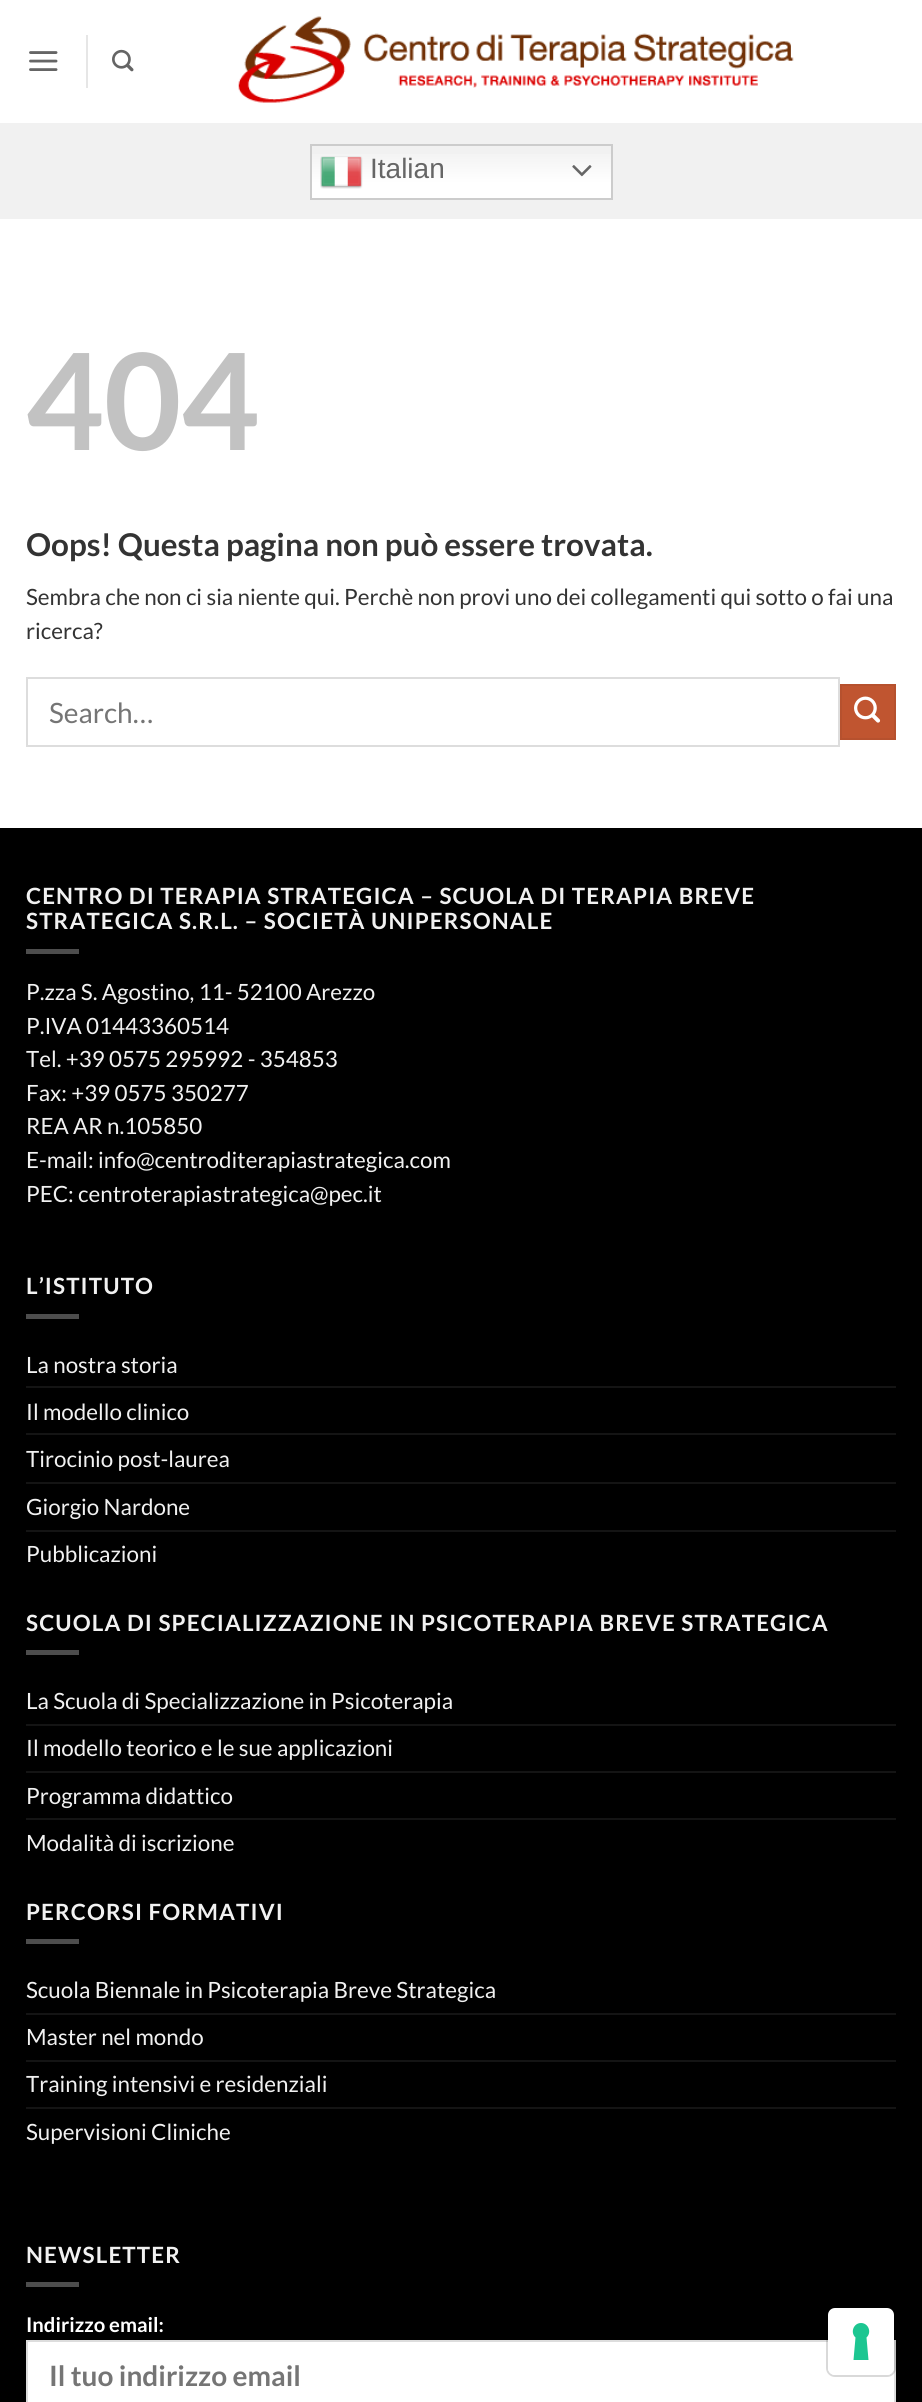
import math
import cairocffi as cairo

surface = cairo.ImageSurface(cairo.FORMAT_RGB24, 922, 2402)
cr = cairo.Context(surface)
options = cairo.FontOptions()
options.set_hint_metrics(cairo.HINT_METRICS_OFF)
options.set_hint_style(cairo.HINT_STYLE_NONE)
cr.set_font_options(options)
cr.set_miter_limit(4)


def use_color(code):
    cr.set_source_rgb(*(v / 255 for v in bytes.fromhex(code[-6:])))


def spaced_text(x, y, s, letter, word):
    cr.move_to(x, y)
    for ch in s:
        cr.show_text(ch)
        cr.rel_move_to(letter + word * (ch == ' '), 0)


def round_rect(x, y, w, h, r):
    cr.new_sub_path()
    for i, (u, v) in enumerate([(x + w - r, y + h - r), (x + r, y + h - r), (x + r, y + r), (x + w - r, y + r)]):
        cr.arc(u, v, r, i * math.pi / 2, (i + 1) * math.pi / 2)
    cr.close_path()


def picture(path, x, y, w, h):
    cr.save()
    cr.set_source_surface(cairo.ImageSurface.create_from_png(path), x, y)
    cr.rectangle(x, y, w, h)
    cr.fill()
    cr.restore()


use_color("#ffffff")
cr.paint()
picture("img1.png", 29, 51, 29, 20)
use_color("#e6e6e6")
cr.rectangle(86, 35, 2, 53)
cr.fill()
picture("img2.png", 112, 49, 22, 23)
picture("img3.png", 238, 16, 556, 87)
use_color("#f1f1f1")
cr.rectangle(0, 123, 922, 96)
cr.fill()
gradient = cairo.LinearGradient(461, 143, 461, 200)
gradient.add_color_stop_rgba(0, 0.937, 0.937, 0.937, 1)
gradient.add_color_stop_rgba(0.7, 1, 1, 1, 1)
cr.set_source(gradient)
cr.rectangle(312, 154, 299, 44)
cr.fill()
cr.rectangle(311, 145, 301, 54)
use_color("#cccccc")
cr.stroke()
picture("img4.png", 320, 156, 43, 33)
cr.select_font_face("Liberation Sans")
cr.set_font_size(28)
use_color("#666666")
cr.move_to(370, 178)
cr.show_text("Italian")
picture("img5.png", 572, 165, 20, 12)
cr.select_font_face("Lato", cairo.FONT_SLANT_NORMAL, cairo.FONT_WEIGHT_BOLD)
cr.set_font_size(134)
use_color("#c2c2c2")
cr.move_to(26, 450)
cr.show_text("404")
cr.set_font_size(31.4)
use_color("#333333")
cr.move_to(26, 556)
cr.show_text("Oops! Questa pagina non può essere trovata.")
cr.select_font_face("Lato")
cr.set_font_size(22.4)
cr.move_to(26, 605)
cr.show_text("Sembra che non ci sia niente qui. Perchè non provi uno dei collegamenti qui sotto o fai una")
cr.move_to(26, 639)
cr.show_text("ricerca?")
cr.rectangle(27, 678, 812, 68)
use_color("#dddddd")
cr.stroke()
cr.set_font_size(28)
use_color("#757575")
cr.move_to(49, 723)
cr.show_text("Search…")
use_color("#c05530")
cr.rectangle(841, 685, 54, 54)
cr.fill_preserve()
use_color("#b6512e")
cr.stroke()
picture("img6.png", 854, 696, 27, 27)
use_color("#000000")
cr.rectangle(0, 828, 922, 1574)
cr.fill()
cr.select_font_face("Lato", cairo.FONT_SLANT_NORMAL, cairo.FONT_WEIGHT_BOLD)
cr.set_font_size(22.4)
use_color("#f1f1f1")
spaced_text(26, 904, "CENTRO DI TERAPIA STRATEGICA – SCUOLA DI TERAPIA BREVE", 1.12, 0)
spaced_text(26, 929, "STRATEGICA S.R.L. – SOCIETÀ UNIPERSONALE", 1.12, 0)
use_color("#4d4d4d")
cr.rectangle(26, 949, 53, 5)
cr.fill()
cr.select_font_face("Lato")
use_color("#f1f1f1")
cr.move_to(26, 1000)
cr.show_text("P.zza S. Agostino, 11- 52100 Arezzo")
cr.move_to(26, 1034)
cr.show_text("P.IVA 01443360514")
cr.move_to(26, 1067)
cr.show_text("Tel. +39 0575 295992 - 354853")
cr.move_to(26, 1101)
cr.show_text("Fax: +39 0575 350277")
cr.move_to(26, 1134)
cr.show_text("REA AR n.105850")
cr.move_to(26, 1168)
cr.show_text("E-mail: info@centroditerapiastrategica.com")
cr.move_to(26, 1202)
cr.show_text("PEC: centroterapiastrategica@pec.it")
cr.select_font_face("Lato", cairo.FONT_SLANT_NORMAL, cairo.FONT_WEIGHT_BOLD)
spaced_text(26, 1294, "L’ISTITUTO", 1.12, 0)
use_color("#4d4d4d")
cr.rectangle(26, 1314, 53, 5)
cr.fill()
cr.select_font_face("Lato")
use_color("#f1f1f1")
cr.move_to(26, 1373)
cr.show_text("La nostra storia")
use_color("#141414")
cr.rectangle(26, 1386, 870, 2)
cr.fill()
use_color("#f1f1f1")
cr.move_to(26, 1420)
cr.show_text("Il modello clinico")
use_color("#141414")
cr.rectangle(26, 1433, 870, 2)
cr.fill()
use_color("#f1f1f1")
cr.move_to(26, 1467)
cr.show_text("Tirocinio post-laurea")
use_color("#141414")
cr.rectangle(26, 1482, 870, 2)
cr.fill()
use_color("#f1f1f1")
cr.move_to(26, 1515)
cr.show_text("Giorgio Nardone")
use_color("#141414")
cr.rectangle(26, 1530, 870, 2)
cr.fill()
use_color("#f1f1f1")
cr.move_to(26, 1562)
cr.show_text("Pubblicazioni")
cr.select_font_face("Lato", cairo.FONT_SLANT_NORMAL, cairo.FONT_WEIGHT_BOLD)
spaced_text(26, 1631, "SCUOLA DI SPECIALIZZAZIONE IN PSICOTERAPIA BREVE STRATEGICA", 1.12, 0)
use_color("#4d4d4d")
cr.rectangle(26, 1650, 53, 5)
cr.fill()
cr.select_font_face("Lato")
use_color("#f1f1f1")
cr.move_to(26, 1709)
cr.show_text("La Scuola di Specializzazione in Psicoterapia")
use_color("#141414")
cr.rectangle(26, 1724, 870, 2)
cr.fill()
use_color("#f1f1f1")
cr.move_to(26, 1756)
cr.show_text("Il modello teorico e le sue applicazioni")
use_color("#141414")
cr.rectangle(26, 1771, 870, 2)
cr.fill()
use_color("#f1f1f1")
cr.move_to(26, 1804)
cr.show_text("Programma didattico")
use_color("#141414")
cr.rectangle(26, 1818, 870, 2)
cr.fill()
use_color("#f1f1f1")
cr.move_to(26, 1851)
cr.show_text("Modalità di iscrizione")
cr.select_font_face("Lato", cairo.FONT_SLANT_NORMAL, cairo.FONT_WEIGHT_BOLD)
spaced_text(26, 1920, "PERCORSI FORMATIVI", 1.12, 0)
use_color("#4d4d4d")
cr.rectangle(26, 1939, 53, 5)
cr.fill()
cr.select_font_face("Lato")
use_color("#f1f1f1")
cr.move_to(26, 1998)
cr.show_text("Scuola Biennale in Psicoterapia Breve Strategica")
use_color("#141414")
cr.rectangle(26, 2013, 870, 2)
cr.fill()
use_color("#f1f1f1")
cr.move_to(26, 2045)
cr.show_text("Master nel mondo")
use_color("#141414")
cr.rectangle(26, 2060, 870, 2)
cr.fill()
use_color("#f1f1f1")
cr.move_to(26, 2092)
cr.show_text("Training intensivi e residenziali")
use_color("#141414")
cr.rectangle(26, 2107, 870, 2)
cr.fill()
use_color("#f1f1f1")
cr.move_to(26, 2140)
cr.show_text("Supervisioni Cliniche")
cr.select_font_face("Lato", cairo.FONT_SLANT_NORMAL, cairo.FONT_WEIGHT_BOLD)
spaced_text(26, 2263, "NEWSLETTER", 1.12, 0)
use_color("#4d4d4d")
cr.rectangle(26, 2282, 53, 5)
cr.fill()
cr.set_font_size(20.25)
use_color("#ffffff")
cr.move_to(26, 2332)
cr.show_text("Indirizzo email:")
cr.rectangle(27, 2341, 868, 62)
cr.fill_preserve()
use_color("#dddddd")
cr.stroke()
cr.set_font_size(28)
use_color("#757575")
cr.move_to(49, 2386)
cr.show_text("Il tuo indirizzo email")
round_rect(827, 2308, 68, 68, 8)
cr.set_source_rgba(0, 0, 0, 0.15)
cr.stroke()
use_color("#ffffff")
round_rect(828, 2308, 66, 67, 7)
cr.fill()
use_color("#1cc691")
cr.set_fill_rule(cairo.FILL_RULE_EVEN_ODD)
cr.new_path()
cr.move_to(861, 2323)
cr.curve_to(868.5, 2323, 872, 2332.5, 866.5, 2337.5)
cr.line_to(868.5, 2360)
cr.line_to(853.5, 2360)
cr.line_to(855.5, 2337.5)
cr.curve_to(850, 2332.5, 853.5, 2323, 861, 2323)
cr.close_path()
cr.fill()
surface.write_to_png("result.png")
